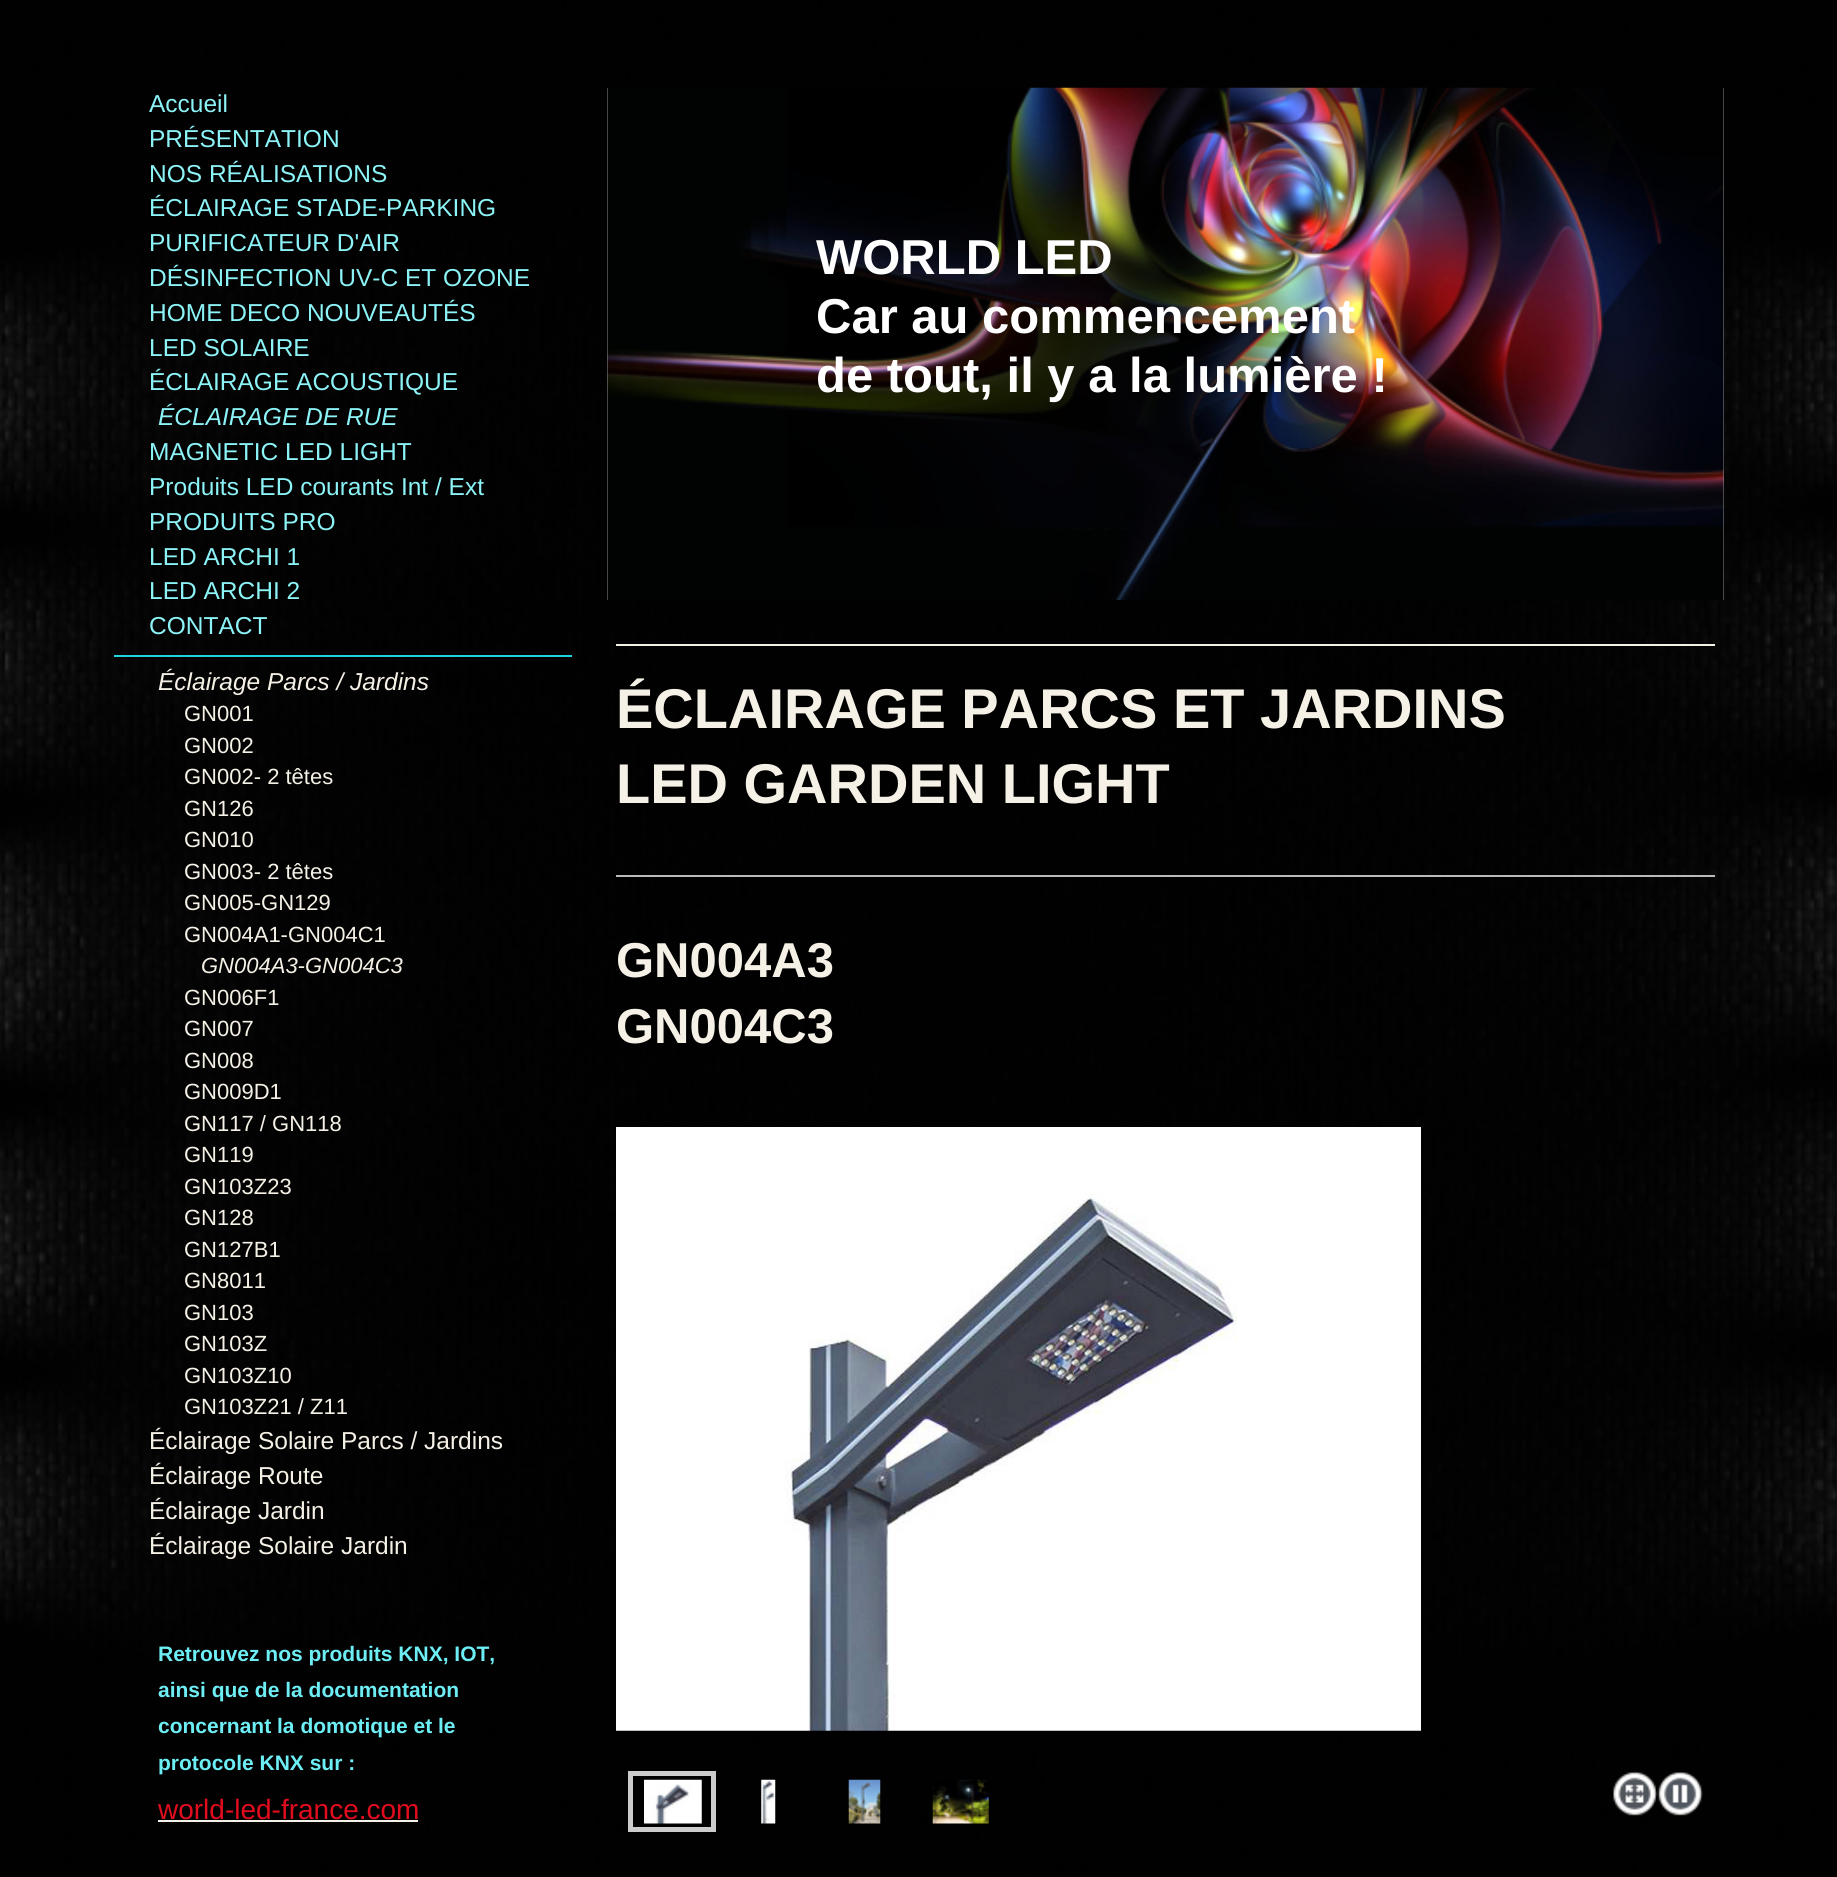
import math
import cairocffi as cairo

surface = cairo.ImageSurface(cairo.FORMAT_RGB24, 1837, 1877)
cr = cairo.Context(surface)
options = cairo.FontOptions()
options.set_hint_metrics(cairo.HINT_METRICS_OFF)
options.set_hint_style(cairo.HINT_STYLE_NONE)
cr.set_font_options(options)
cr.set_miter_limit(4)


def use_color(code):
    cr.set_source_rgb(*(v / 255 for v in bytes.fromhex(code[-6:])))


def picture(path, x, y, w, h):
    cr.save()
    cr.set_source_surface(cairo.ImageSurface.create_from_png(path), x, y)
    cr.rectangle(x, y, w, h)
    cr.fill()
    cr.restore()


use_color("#ffffff")
cr.paint()
picture("img1.png", 0, 0, 1837, 1877)
cr.select_font_face("Liberation Sans")
cr.set_font_size(24.5)
use_color("#8cf3f7")
cr.move_to(149, 112)
cr.show_text("Accueil")
cr.move_to(149, 147)
cr.show_text("PRÉSENTATION")
cr.move_to(149, 182)
cr.show_text("NOS RÉALISATIONS")
cr.move_to(149, 216)
cr.show_text("ÉCLAIRAGE STADE-PARKING")
cr.move_to(149, 251)
cr.show_text("PURIFICATEUR D'AIR")
cr.move_to(149, 286)
cr.show_text("DÉSINFECTION UV-C ET OZONE")
cr.move_to(149, 321)
cr.show_text("HOME DECO NOUVEAUTÉS")
cr.move_to(149, 356)
cr.show_text("LED SOLAIRE")
cr.move_to(149, 390)
cr.show_text("ÉCLAIRAGE ACOUSTIQUE")
cr.select_font_face("Liberation Sans", cairo.FONT_SLANT_ITALIC)
cr.move_to(158, 425)
cr.show_text("ÉCLAIRAGE DE RUE")
cr.select_font_face("Liberation Sans")
cr.move_to(149, 460)
cr.show_text("MAGNETIC LED LIGHT")
cr.move_to(149, 495)
cr.show_text("Produits LED courants Int / Ext")
cr.move_to(149, 530)
cr.show_text("PRODUITS PRO")
cr.move_to(149, 565)
cr.show_text("LED ARCHI 1")
cr.move_to(149, 599)
cr.show_text("LED ARCHI 2")
cr.move_to(149, 634)
cr.show_text("CONTACT")
use_color("#1cd6de")
cr.rectangle(114, 655, 458, 2)
cr.fill()
cr.select_font_face("Liberation Sans", cairo.FONT_SLANT_ITALIC)
use_color("#f6f1e6")
cr.move_to(158, 690)
cr.show_text("Éclairage Parcs / Jardins")
cr.select_font_face("Liberation Sans")
cr.set_font_size(22)
cr.move_to(184, 721)
cr.show_text("GN001")
cr.move_to(184, 753)
cr.show_text("GN002")
cr.move_to(184, 784)
cr.show_text("GN002- 2 têtes")
cr.move_to(184, 816)
cr.show_text("GN126")
cr.move_to(184, 847)
cr.show_text("GN010")
cr.move_to(184, 879)
cr.show_text("GN003- 2 têtes")
cr.move_to(184, 910)
cr.show_text("GN005-GN129")
cr.move_to(184, 942)
cr.show_text("GN004A1-GN004C1")
cr.select_font_face("Liberation Sans", cairo.FONT_SLANT_ITALIC)
cr.move_to(201, 973)
cr.show_text("GN004A3-GN004C3")
cr.select_font_face("Liberation Sans")
cr.move_to(184, 1005)
cr.show_text("GN006F1")
cr.move_to(184, 1036)
cr.show_text("GN007")
cr.move_to(184, 1068)
cr.show_text("GN008")
cr.move_to(184, 1099)
cr.show_text("GN009D1")
cr.move_to(184, 1131)
cr.show_text("GN117 / GN118")
cr.move_to(184, 1162)
cr.show_text("GN119")
cr.move_to(184, 1194)
cr.show_text("GN103Z23")
cr.move_to(184, 1225)
cr.show_text("GN128")
cr.move_to(184, 1257)
cr.show_text("GN127B1")
cr.move_to(184, 1288)
cr.show_text("GN8011")
cr.move_to(184, 1320)
cr.show_text("GN103")
cr.move_to(184, 1351)
cr.show_text("GN103Z")
cr.move_to(184, 1383)
cr.show_text("GN103Z10")
cr.move_to(184, 1414)
cr.show_text("GN103Z21 / Z11")
cr.set_font_size(24.5)
cr.move_to(149, 1449)
cr.show_text("Éclairage Solaire Parcs / Jardins")
cr.move_to(149, 1484)
cr.show_text("Éclairage Route")
cr.move_to(149, 1519)
cr.show_text("Éclairage Jardin")
cr.move_to(149, 1554)
cr.show_text("Éclairage Solaire Jardin")
cr.select_font_face("Liberation Sans", cairo.FONT_SLANT_NORMAL, cairo.FONT_WEIGHT_BOLD)
cr.set_font_size(21)
use_color("#6deef5")
cr.move_to(158, 1661)
cr.show_text("Retrouvez nos produits KNX, IOT,")
cr.move_to(158, 1697)
cr.show_text("ainsi que de la documentation")
cr.move_to(158, 1733)
cr.show_text("concernant la domotique et le")
cr.move_to(158, 1770)
cr.show_text("protocole KNX sur :")
cr.select_font_face("Liberation Sans")
cr.set_font_size(28)
use_color("#e10d1e")
cr.move_to(158, 1819)
cr.show_text("world-led-france.com")
use_color("#f6f1e6")
cr.rectangle(158, 1820, 260, 2)
cr.fill()
use_color("#a0a0a0")
cr.rectangle(607, 88, 1117, 512)
cr.fill()
picture("img2.png", 607, 87, 1117, 513)
cr.select_font_face("Liberation Sans", cairo.FONT_SLANT_NORMAL, cairo.FONT_WEIGHT_BOLD)
cr.set_font_size(49)
use_color("#ffffff")
cr.move_to(816, 274)
cr.show_text("WORLD LED")
cr.move_to(816, 333)
cr.show_text("Car au commencement")
cr.move_to(816, 392)
cr.show_text("de tout, il y a la lumière !")
use_color("#f6f1e6")
cr.rectangle(616, 644, 1099, 2)
cr.fill()
cr.set_font_size(56)
cr.move_to(616, 728)
cr.show_text("ÉCLAIRAGE PARCS ET JARDINS")
cr.move_to(616, 803)
cr.show_text("LED GARDEN LIGHT")
use_color("#bababa")
cr.rectangle(616, 875, 1099, 2)
cr.fill()
cr.set_font_size(49)
use_color("#f6f1e6")
cr.move_to(616, 977)
cr.show_text("GN004A3")
cr.move_to(616, 1043)
cr.show_text("GN004C3")
picture("img3.png", 616, 1127, 805, 604)
cr.rectangle(630.5, 1773.5, 83, 56)
use_color("#cccccc")
cr.set_line_width(5)
cr.stroke()
picture("img4.png", 644, 1779, 58, 45)
picture("img5.png", 761, 1779, 15, 45)
picture("img6.png", 848, 1779, 33, 45)
picture("img7.png", 932, 1779, 57, 45)
picture("img8.png", 1613, 1771, 45, 45)
picture("img9.png", 1658, 1771, 45, 45)
surface.write_to_png("result.png")
